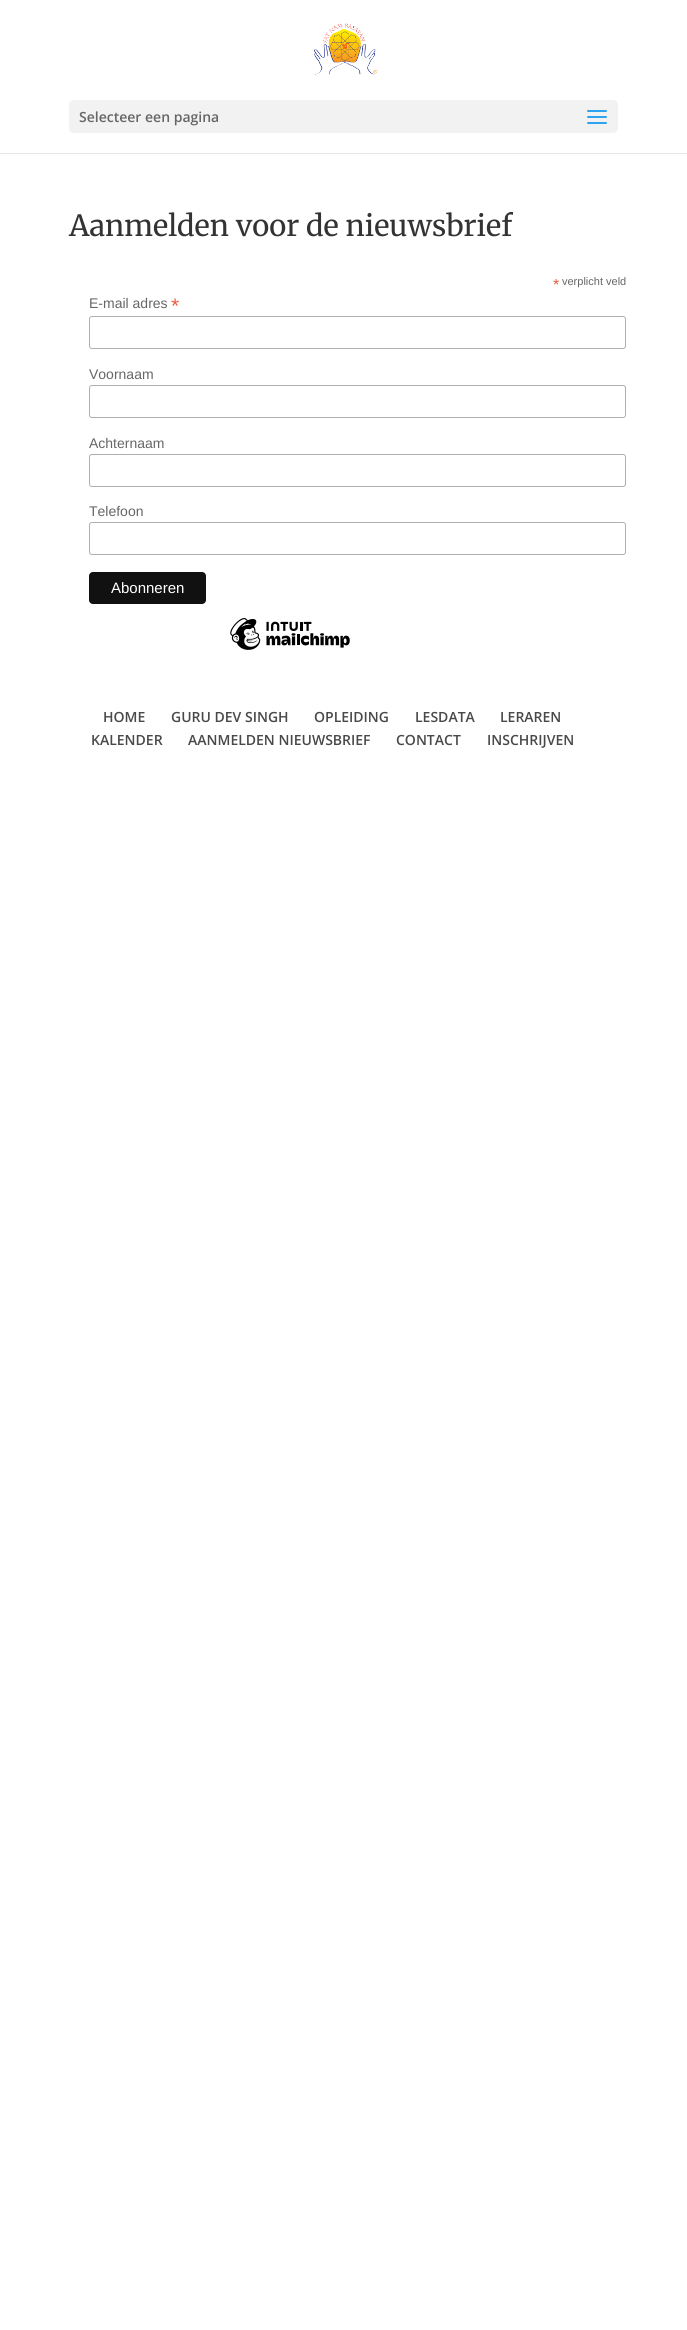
import math
import cairocffi as cairo

surface = cairo.ImageSurface(cairo.FORMAT_RGB24, 687, 2330)
cr = cairo.Context(surface)
options = cairo.FontOptions()
options.set_hint_metrics(cairo.HINT_METRICS_OFF)
options.set_hint_style(cairo.HINT_STYLE_NONE)
cr.set_font_options(options)
cr.set_miter_limit(4)


def use_color(code):
    cr.set_source_rgb(*(v / 255 for v in bytes.fromhex(code[-6:])))


def round_rect(x, y, w, h, r):
    cr.new_sub_path()
    for i, (u, v) in enumerate([(x + w - r, y + h - r), (x + r, y + h - r), (x + r, y + r), (x + w - r, y + r)]):
        cr.arc(u, v, r, i * math.pi / 2, (i + 1) * math.pi / 2)
    cr.close_path()


def picture(path, x, y, w, h):
    cr.save()
    cr.set_source_surface(cairo.ImageSurface.create_from_png(path), x, y)
    cr.rectangle(x, y, w, h)
    cr.fill()
    cr.restore()


use_color("#ffffff")
cr.paint()
use_color("#e6e6e6")
cr.rectangle(0, 153, 687, 1)
cr.fill()
picture("img1.png", 314, 23, 64, 52)
use_color("#f2f2f2")
round_rect(69, 100, 549, 33, 5)
cr.fill()
cr.select_font_face("Open Sans SemiBold")
cr.set_font_size(14)
use_color("#666666")
cr.move_to(79, 122)
cr.show_text("Selecteer een pagina")
picture("img2.png", 587, 110, 20, 14)
cr.select_font_face("Merriweather")
cr.set_font_size(29)
use_color("#333333")
cr.move_to(69, 236)
cr.show_text("Aanmelden voor de nieuwsbrief")
cr.select_font_face("Liberation Sans")
cr.set_font_size(16)
use_color("#e85c41")
cr.move_to(553, 290)
cr.show_text("*")
cr.set_font_size(11)
use_color("#666666")
cr.move_to(562, 285)
cr.show_text("verplicht veld")
cr.set_font_size(14)
cr.move_to(89, 308)
cr.show_text("E-mail adres")
cr.set_font_size(21)
use_color("#e85c41")
cr.move_to(171, 313)
cr.show_text("*")
round_rect(89.5, 316.5, 536, 32, 2.5)
use_color("#abb0b2")
cr.set_line_width(1)
cr.stroke()
cr.set_font_size(14)
use_color("#666666")
cr.move_to(89, 379)
cr.show_text("Voornaam")
round_rect(89.5, 385.5, 536, 32, 2.5)
use_color("#abb0b2")
cr.stroke()
use_color("#666666")
cr.move_to(89, 448)
cr.show_text("Achternaam")
round_rect(89.5, 454.5, 536, 32, 2.5)
use_color("#abb0b2")
cr.stroke()
use_color("#666666")
cr.move_to(89, 516)
cr.show_text("Telefoon")
round_rect(89.5, 522.5, 536, 32, 2.5)
use_color("#abb0b2")
cr.stroke()
use_color("#111111")
round_rect(89, 572, 117, 32, 4)
cr.fill()
cr.set_font_size(15)
use_color("#ffffff")
cr.move_to(111, 593)
cr.show_text("Abonneren")
picture("img3.png", 230, 618, 120, 32)
cr.select_font_face("Open Sans SemiBold")
cr.set_font_size(14)
use_color("#494949")
cr.move_to(103, 722)
cr.show_text("HOME")
cr.move_to(171, 722)
cr.show_text("GURU DEV SINGH")
cr.move_to(314, 722)
cr.show_text("OPLEIDING")
cr.move_to(415, 722)
cr.show_text("LESDATA")
cr.move_to(500, 722)
cr.show_text("LERAREN")
cr.move_to(91, 745)
cr.show_text("KALENDER")
cr.move_to(188, 745)
cr.show_text("AANMELDEN NIEUWSBRIEF")
cr.move_to(396, 745)
cr.show_text("CONTACT")
cr.move_to(487, 745)
cr.show_text("INSCHRIJVEN")
surface.write_to_png("result.png")
